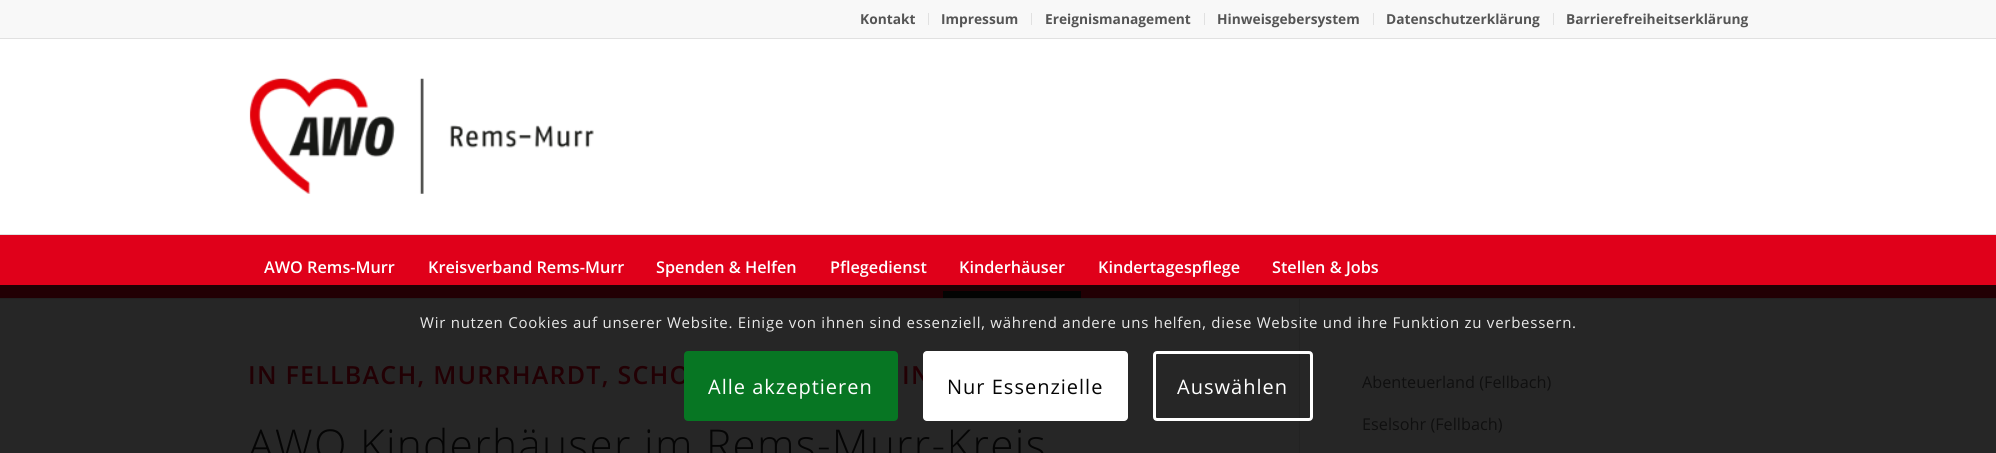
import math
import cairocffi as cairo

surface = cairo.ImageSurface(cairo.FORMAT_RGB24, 1996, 453)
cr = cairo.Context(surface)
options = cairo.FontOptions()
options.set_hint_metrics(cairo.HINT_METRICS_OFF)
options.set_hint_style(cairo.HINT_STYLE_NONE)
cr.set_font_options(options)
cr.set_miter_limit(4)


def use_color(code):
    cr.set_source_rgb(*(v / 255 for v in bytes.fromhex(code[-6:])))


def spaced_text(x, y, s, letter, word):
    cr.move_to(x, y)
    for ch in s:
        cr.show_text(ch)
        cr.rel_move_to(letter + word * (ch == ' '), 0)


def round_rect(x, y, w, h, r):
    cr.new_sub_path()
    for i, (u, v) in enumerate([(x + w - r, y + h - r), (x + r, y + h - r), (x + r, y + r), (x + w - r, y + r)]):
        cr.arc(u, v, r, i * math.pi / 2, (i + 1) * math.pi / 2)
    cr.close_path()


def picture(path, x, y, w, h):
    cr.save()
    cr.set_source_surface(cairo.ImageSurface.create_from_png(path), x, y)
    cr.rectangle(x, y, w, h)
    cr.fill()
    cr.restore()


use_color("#262626")
cr.paint()
use_color("#ffffff")
cr.rectangle(0, 39, 1996, 195)
cr.fill()
use_color("#f8f8f8")
cr.rectangle(0, 0, 1996, 38)
cr.fill()
use_color("#e1e1e1")
cr.rectangle(0, 38, 1996, 1)
cr.fill()
cr.rectangle(928, 13, 1, 12)
cr.fill()
cr.select_font_face("Open Sans", cairo.FONT_SLANT_NORMAL, cairo.FONT_WEIGHT_BOLD)
cr.set_font_size(13.75)
use_color("#555555")
cr.move_to(860, 24)
cr.show_text("Kontakt")
use_color("#e1e1e1")
cr.rectangle(1031, 13, 1, 12)
cr.fill()
use_color("#555555")
cr.move_to(941, 24)
cr.show_text("Impressum")
use_color("#e1e1e1")
cr.rectangle(1204, 13, 1, 12)
cr.fill()
use_color("#555555")
cr.move_to(1045, 24)
cr.show_text("Ereignismanagement")
use_color("#e1e1e1")
cr.rectangle(1373, 13, 1, 12)
cr.fill()
use_color("#555555")
cr.move_to(1217, 24)
cr.show_text("Hinweisgebersystem")
use_color("#e1e1e1")
cr.rectangle(1553, 13, 1, 12)
cr.fill()
use_color("#555555")
cr.move_to(1386, 24)
cr.show_text("Datenschutzerklärung")
cr.move_to(1566, 24)
cr.show_text("Barrierefreiheitserklärung")
use_color("#222222")
cr.rectangle(0, 298, 1996, 1)
cr.fill()
picture("img1.png", 249, 78, 345, 116)
use_color("#e0001a")
cr.rectangle(0, 235, 1996, 50)
cr.fill()
use_color("#220004")
cr.rectangle(0, 285, 1996, 13)
cr.fill()
use_color("#e1e1e1")
cr.rectangle(0, 234, 1996, 1)
cr.fill()
cr.select_font_face("Open Sans SemiBold")
cr.set_font_size(16.25)
use_color("#ffffff")
cr.move_to(264, 273)
cr.show_text("AWO Rems-Murr")
cr.move_to(428, 273)
cr.show_text("Kreisverband Rems-Murr")
cr.move_to(656, 273)
cr.show_text("Spenden & Helfen")
cr.move_to(830, 273)
cr.show_text("Pflegedienst")
cr.move_to(959, 273)
cr.show_text("Kinderhäuser")
use_color("#030403")
cr.rectangle(943, 291, 138, 7)
cr.fill()
use_color("#ffffff")
cr.move_to(1098, 273)
cr.show_text("Kindertagespflege")
cr.move_to(1272, 273)
cr.show_text("Stellen & Jobs")
use_color("#222222")
cr.rectangle(1299, 299, 1, 154)
cr.fill()
cr.set_font_size(25)
use_color("#220004")
spaced_text(248, 384, "IN FELLBACH, MURRHARDT, SCHO", 1.25, 0)
spaced_text(902, 384, "IN", 1.25, 0)
cr.select_font_face("Open Sans Light")
cr.set_font_size(42.5)
use_color("#050505")
spaced_text(248, 460, "AWO Kinderhäuser im Rems-Murr-Kreis", 1.25, 0)
cr.select_font_face("Open Sans")
cr.set_font_size(16.25)
use_color("#0f0f0f")
cr.move_to(1362, 388)
cr.show_text("Abenteuerland (Fellbach)")
cr.move_to(1362, 430)
cr.show_text("Eselsohr (Fellbach)")
cr.set_font_size(15)
use_color("#e9e9e9")
spaced_text(420, 328, "Wir nutzen Cookies auf unserer Website. Einige von ihnen sind essenziell, während andere uns helfen, diese Website und ihre Funktion zu verbessern.", 0.75, 0)
use_color("#077623")
round_rect(685.5, 352.5, 211, 67, 2.5)
cr.fill_preserve()
cr.set_line_width(3)
cr.stroke()
cr.set_font_size(20)
use_color("#ffffff")
spaced_text(708, 394, "Alle akzeptieren", 1, 0)
round_rect(923, 351, 205, 70, 4)
cr.fill()
use_color("#050505")
spaced_text(947, 394, "Nur Essenzielle", 1, 0)
round_rect(1154.5, 352.5, 157, 67, 2.5)
use_color("#ffffff")
cr.stroke()
spaced_text(1177, 394, "Auswählen", 1, 0)
surface.write_to_png("result.png")
